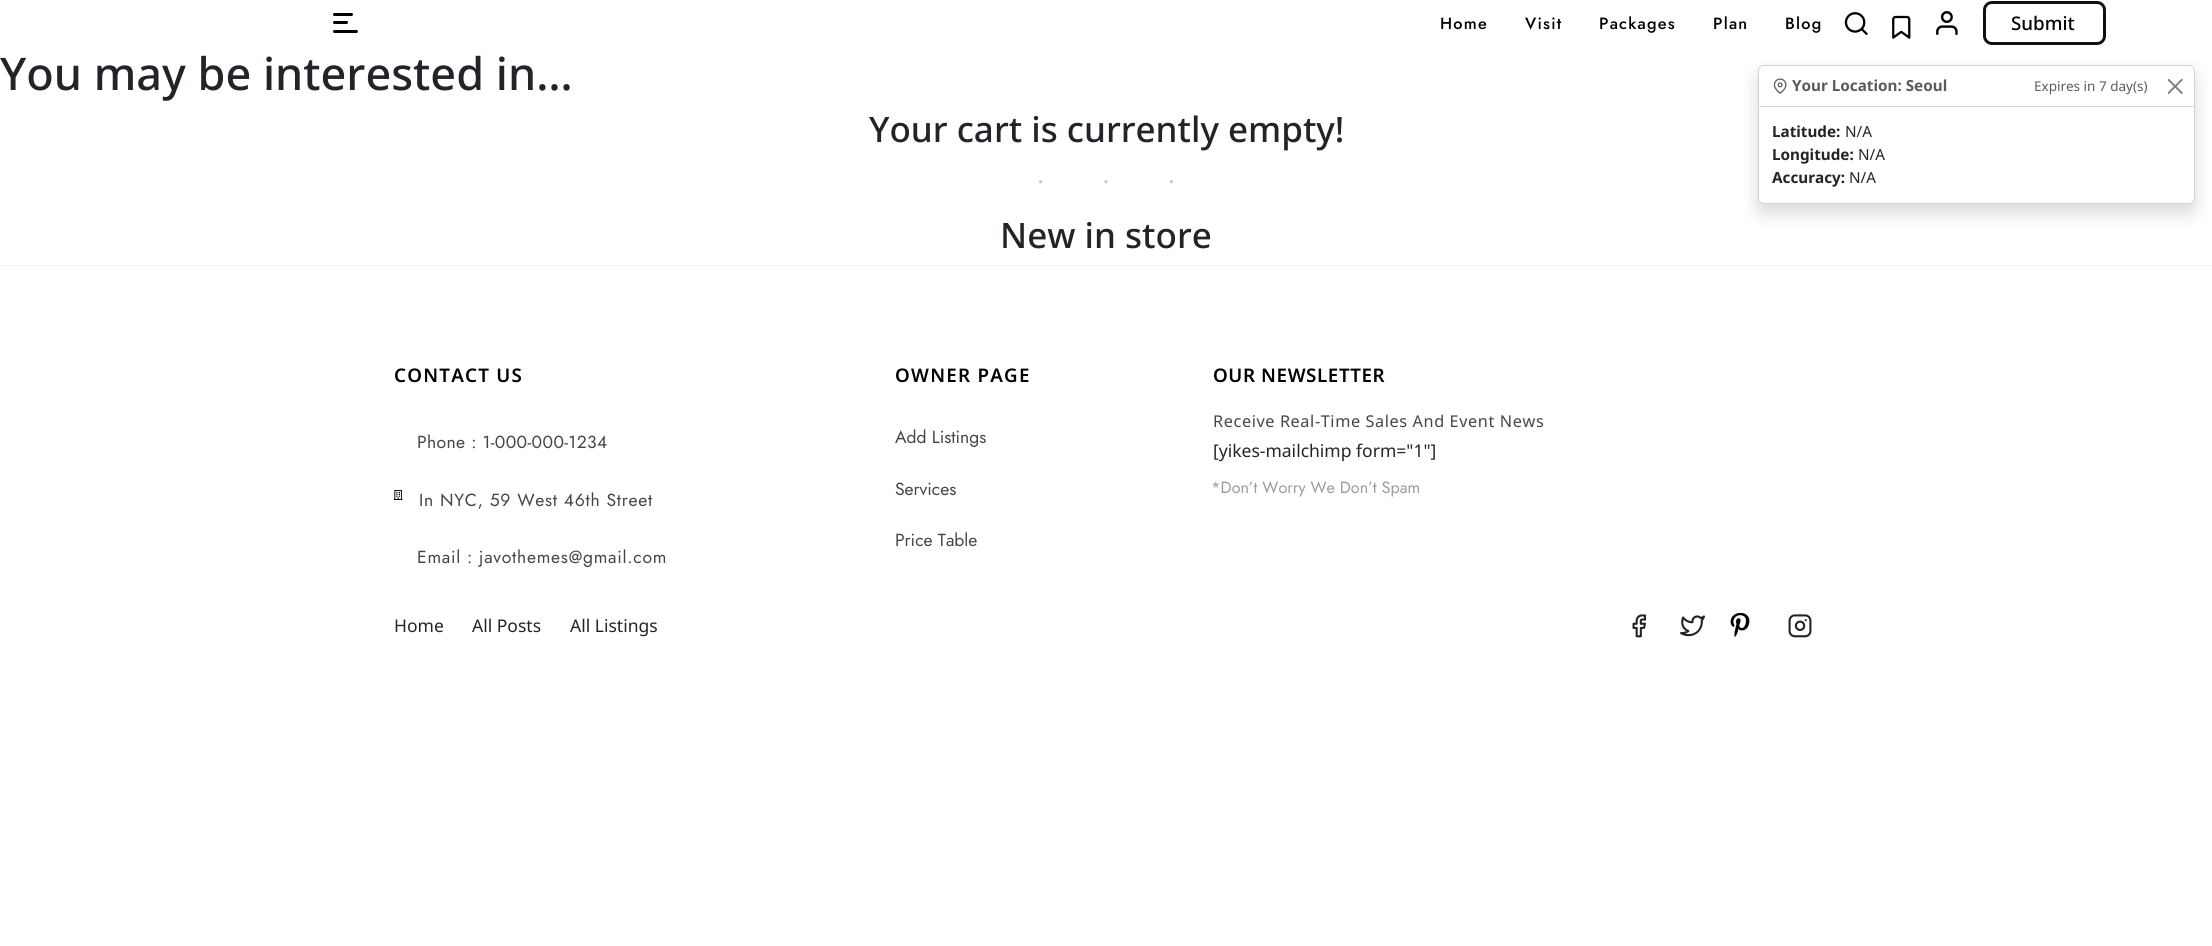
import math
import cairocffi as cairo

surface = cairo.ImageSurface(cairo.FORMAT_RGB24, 2212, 946)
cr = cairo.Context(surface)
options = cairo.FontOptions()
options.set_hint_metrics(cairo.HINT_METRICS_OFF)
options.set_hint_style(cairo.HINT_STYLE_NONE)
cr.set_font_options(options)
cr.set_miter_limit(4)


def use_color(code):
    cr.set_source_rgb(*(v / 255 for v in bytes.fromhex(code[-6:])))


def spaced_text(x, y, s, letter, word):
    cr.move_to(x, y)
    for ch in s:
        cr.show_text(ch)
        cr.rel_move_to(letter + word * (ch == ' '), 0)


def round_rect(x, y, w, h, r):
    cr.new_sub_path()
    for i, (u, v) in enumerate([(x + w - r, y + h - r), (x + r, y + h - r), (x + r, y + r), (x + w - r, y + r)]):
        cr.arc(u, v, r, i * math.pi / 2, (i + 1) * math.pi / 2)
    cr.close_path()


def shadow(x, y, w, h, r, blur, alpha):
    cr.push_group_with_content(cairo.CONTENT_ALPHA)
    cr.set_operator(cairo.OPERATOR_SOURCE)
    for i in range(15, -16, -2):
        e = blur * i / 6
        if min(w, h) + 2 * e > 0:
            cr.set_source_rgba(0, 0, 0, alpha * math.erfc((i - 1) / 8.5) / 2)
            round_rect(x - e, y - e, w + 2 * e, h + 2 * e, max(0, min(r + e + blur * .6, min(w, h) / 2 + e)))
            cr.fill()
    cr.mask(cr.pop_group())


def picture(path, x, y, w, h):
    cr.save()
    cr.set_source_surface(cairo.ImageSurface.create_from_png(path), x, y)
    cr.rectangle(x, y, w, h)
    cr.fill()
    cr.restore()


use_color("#ffffff")
cr.paint()
use_color("#000000")
round_rect(333, 13, 20, 3, 1.5)
cr.fill()
round_rect(333, 21, 15, 3, 1.5)
cr.fill()
round_rect(333, 30, 25, 3, 1.5)
cr.fill()
cr.select_font_face("Jost Medium")
cr.set_font_size(16.25)
spaced_text(1440, 29, "Home", 1.25, 0)
spaced_text(1525, 29, "Visit", 1.25, 0)
spaced_text(1599, 29, "Packages", 1.25, 0)
spaced_text(1713, 29, "Plan", 1.25, 0)
spaced_text(1785, 29, "Blog", 1.25, 0)
picture("img1.png", 1844, 12, 24, 23)
picture("img2.png", 1892, 15, 19, 24)
picture("img3.png", 1936, 11, 22, 24)
round_rect(1984.5, 2.5, 120, 41, 7.5)
use_color("#111111")
cr.set_line_width(3)
cr.stroke()
cr.select_font_face("Noto Sans Medium")
cr.set_font_size(18.75)
use_color("#000000")
cr.move_to(2011, 30)
cr.show_text("Submit")
cr.set_font_size(45)
use_color("#212529")
cr.move_to(0, 90)
cr.show_text("You may be interested in…")
cr.set_font_size(35)
cr.move_to(869, 142)
cr.show_text("Your cart is currently empty!")
cr.select_font_face("Liberation Serif")
cr.set_font_size(28)
use_color("#c8c9ca")
spaced_text(1036, 191, "···", 56, 0)
cr.select_font_face("Noto Sans Medium")
cr.set_font_size(35)
use_color("#212529")
cr.move_to(1000, 248)
cr.show_text("New in store")
cr.save()
cr.set_fill_rule(cairo.FILL_RULE_EVEN_ODD)
cr.new_path()
cr.move_to(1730, 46)
cr.line_to(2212, 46)
cr.line_to(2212, 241)
cr.line_to(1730, 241)
cr.close_path()
cr.move_to(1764, 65)
cr.line_to(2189, 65)
cr.curve_to(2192.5, 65, 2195, 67.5, 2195, 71)
cr.line_to(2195, 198)
cr.curve_to(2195, 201.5, 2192.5, 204, 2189, 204)
cr.line_to(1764, 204)
cr.curve_to(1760.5, 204, 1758, 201.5, 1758, 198)
cr.line_to(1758, 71)
cr.curve_to(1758, 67.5, 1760.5, 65, 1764, 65)
cr.close_path()
cr.clip()
use_color("#000000")
shadow(1758, 74, 437, 139, 6, 9, 0.15)
cr.restore()
round_rect(1758.5, 65.5, 436, 138, 5.5)
cr.set_source_rgba(0, 0, 0, 0.18)
cr.set_line_width(1)
cr.stroke()
cr.set_source_rgba(1, 1, 1, 0.85)
cr.new_path()
cr.move_to(1764, 66)
cr.line_to(2189, 66)
cr.curve_to(2192, 66, 2194, 68, 2194, 71)
cr.line_to(2194, 106)
cr.line_to(1759, 106)
cr.line_to(1759, 71)
cr.curve_to(1759, 68, 1761, 66, 1764, 66)
cr.close_path()
cr.fill()
use_color("#d2d2d2")
cr.rectangle(1759, 106, 435, 1)
cr.fill()
picture("img4.png", 1773, 78, 14, 16)
cr.select_font_face("Noto Sans", cairo.FONT_SLANT_NORMAL, cairo.FONT_WEIGHT_BOLD)
cr.set_font_size(15.25)
use_color("#595c5f")
cr.move_to(1792, 91)
cr.show_text("Your Location: Seoul")
cr.select_font_face("Noto Sans")
cr.set_font_size(13.5)
cr.move_to(2034, 91)
cr.show_text("Expires in 7 day(s)")
picture("img5.png", 2168, 79, 15, 15)
cr.select_font_face("Noto Sans", cairo.FONT_SLANT_NORMAL, cairo.FONT_WEIGHT_BOLD)
cr.set_font_size(15.25)
use_color("#212529")
cr.move_to(1772, 137)
cr.show_text("Latitude:")
cr.select_font_face("Noto Sans")
cr.move_to(1845, 137)
cr.show_text("N/A")
cr.select_font_face("Noto Sans", cairo.FONT_SLANT_NORMAL, cairo.FONT_WEIGHT_BOLD)
cr.move_to(1772, 160)
cr.show_text("Longitude:")
cr.select_font_face("Noto Sans")
cr.move_to(1858, 160)
cr.show_text("N/A")
cr.select_font_face("Noto Sans", cairo.FONT_SLANT_NORMAL, cairo.FONT_WEIGHT_BOLD)
cr.move_to(1772, 183)
cr.show_text("Accuracy:")
cr.select_font_face("Noto Sans")
cr.move_to(1849, 183)
cr.show_text("N/A")
use_color("#f0f0f0")
cr.rectangle(0, 265, 2212, 1)
cr.fill()
cr.select_font_face("Noto Sans SemiBold")
cr.set_font_size(18.75)
use_color("#000000")
spaced_text(394, 382, "CONTACT US", 1.25, 0)
cr.select_font_face("Jost")
cr.set_font_size(17.5)
use_color("#454545")
spaced_text(417, 448, "Phone : 1-000-000-1234", 0.4, 0)
picture("img6.png", 394, 490, 9, 10)
spaced_text(419, 506, "In NYC, 59 West 46th Street", 0.75, 0)
spaced_text(417, 563, "Email : javothemes@gmail.com", 0.75, 0)
cr.select_font_face("Noto Sans SemiBold")
cr.set_font_size(18.75)
use_color("#000000")
spaced_text(895, 382, "OWNER PAGE", 1.25, 0)
cr.select_font_face("Jost")
cr.set_font_size(17.5)
use_color("#454545")
cr.move_to(895, 443)
cr.show_text("Add Listings")
cr.move_to(895, 495)
cr.show_text("Services")
cr.move_to(895, 546)
cr.show_text("Price Table")
cr.select_font_face("Noto Sans SemiBold")
cr.set_font_size(18.75)
use_color("#000000")
spaced_text(1213, 382, "OUR NEWSLETTER", 0.6, 0)
cr.select_font_face("Noto Sans")
cr.set_font_size(16.25)
use_color("#454545")
spaced_text(1213, 427, "Receive Real-Time Sales And Event News", 0.6, 0)
cr.set_font_size(17.5)
use_color("#212529")
cr.move_to(1213, 457)
cr.show_text("[yikes-mailchimp form=\"1\"]")
cr.select_font_face("Jost")
cr.set_font_size(16.25)
use_color("#9b9b9b")
cr.move_to(1211, 493)
cr.show_text("*Don’t Worry We Don’t Spam")
cr.select_font_face("Noto Sans")
cr.set_font_size(17.5)
use_color("#212529")
cr.move_to(394, 632)
cr.show_text("Home")
cr.move_to(472, 632)
cr.show_text("All Posts")
cr.move_to(570, 632)
cr.show_text("All Listings")
picture("img7.png", 1632, 614, 15, 24)
picture("img8.png", 1680, 615, 25, 22)
picture("img9.png", 1730, 613, 20, 25)
picture("img10.png", 1788, 614, 24, 24)
surface.write_to_png("result.png")
